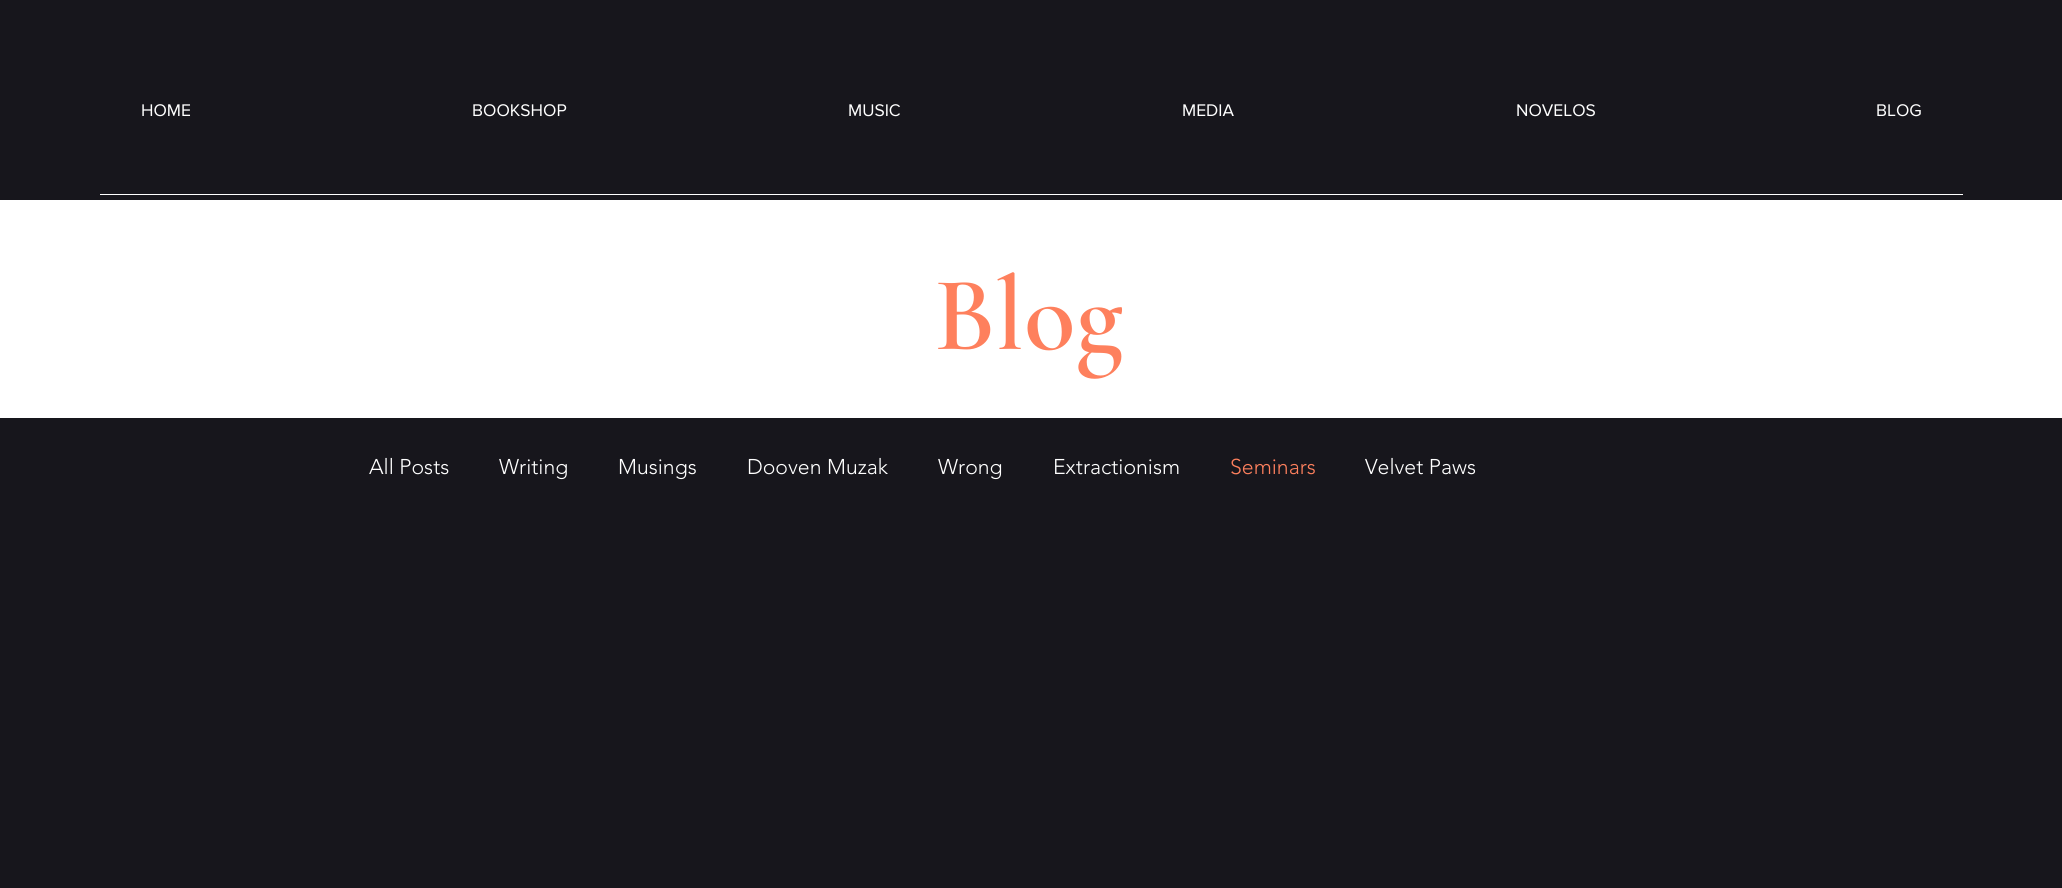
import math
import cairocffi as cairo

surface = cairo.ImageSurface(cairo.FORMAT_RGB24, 2062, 888)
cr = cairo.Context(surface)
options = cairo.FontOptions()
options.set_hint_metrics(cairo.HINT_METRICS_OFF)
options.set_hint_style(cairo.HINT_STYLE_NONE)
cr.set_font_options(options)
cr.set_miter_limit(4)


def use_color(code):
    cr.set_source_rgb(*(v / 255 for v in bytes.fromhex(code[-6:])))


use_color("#ffffff")
cr.paint()
use_color("#17161c")
cr.rectangle(0, 0, 2062, 200)
cr.fill()
cr.select_font_face("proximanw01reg")
cr.set_font_size(17.5)
use_color("#ffffff")
cr.move_to(141, 116)
cr.show_text("HOME")
cr.move_to(472, 116)
cr.show_text("BOOKSHOP")
cr.move_to(848, 116)
cr.show_text("MUSIC")
cr.move_to(1182, 116)
cr.show_text("MEDIA")
cr.move_to(1516, 116)
cr.show_text("NOVELOS")
cr.move_to(1876, 116)
cr.show_text("BLOG")
cr.rectangle(100, 194, 1863, 1)
cr.fill()
cr.select_font_face("Cormorant Garamond SemiBold")
cr.set_font_size(106)
use_color("#fe805d")
cr.move_to(934, 349)
cr.show_text("Blog")
use_color("#17161c")
cr.rectangle(0, 418, 2062, 470)
cr.fill()
cr.select_font_face("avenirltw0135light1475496 Light")
cr.set_font_size(21.25)
use_color("#ffffff")
cr.move_to(369, 474)
cr.show_text("All Posts")
cr.move_to(499, 474)
cr.show_text("Writing")
cr.move_to(618, 474)
cr.show_text("Musings")
cr.move_to(747, 474)
cr.show_text("Dooven Muzak")
cr.move_to(938, 474)
cr.show_text("Wrong")
cr.move_to(1053, 474)
cr.show_text("Extractionism")
use_color("#fe805d")
cr.move_to(1230, 474)
cr.show_text("Seminars")
use_color("#ffffff")
cr.move_to(1365, 474)
cr.show_text("Velvet Paws")
surface.write_to_png("result.png")
